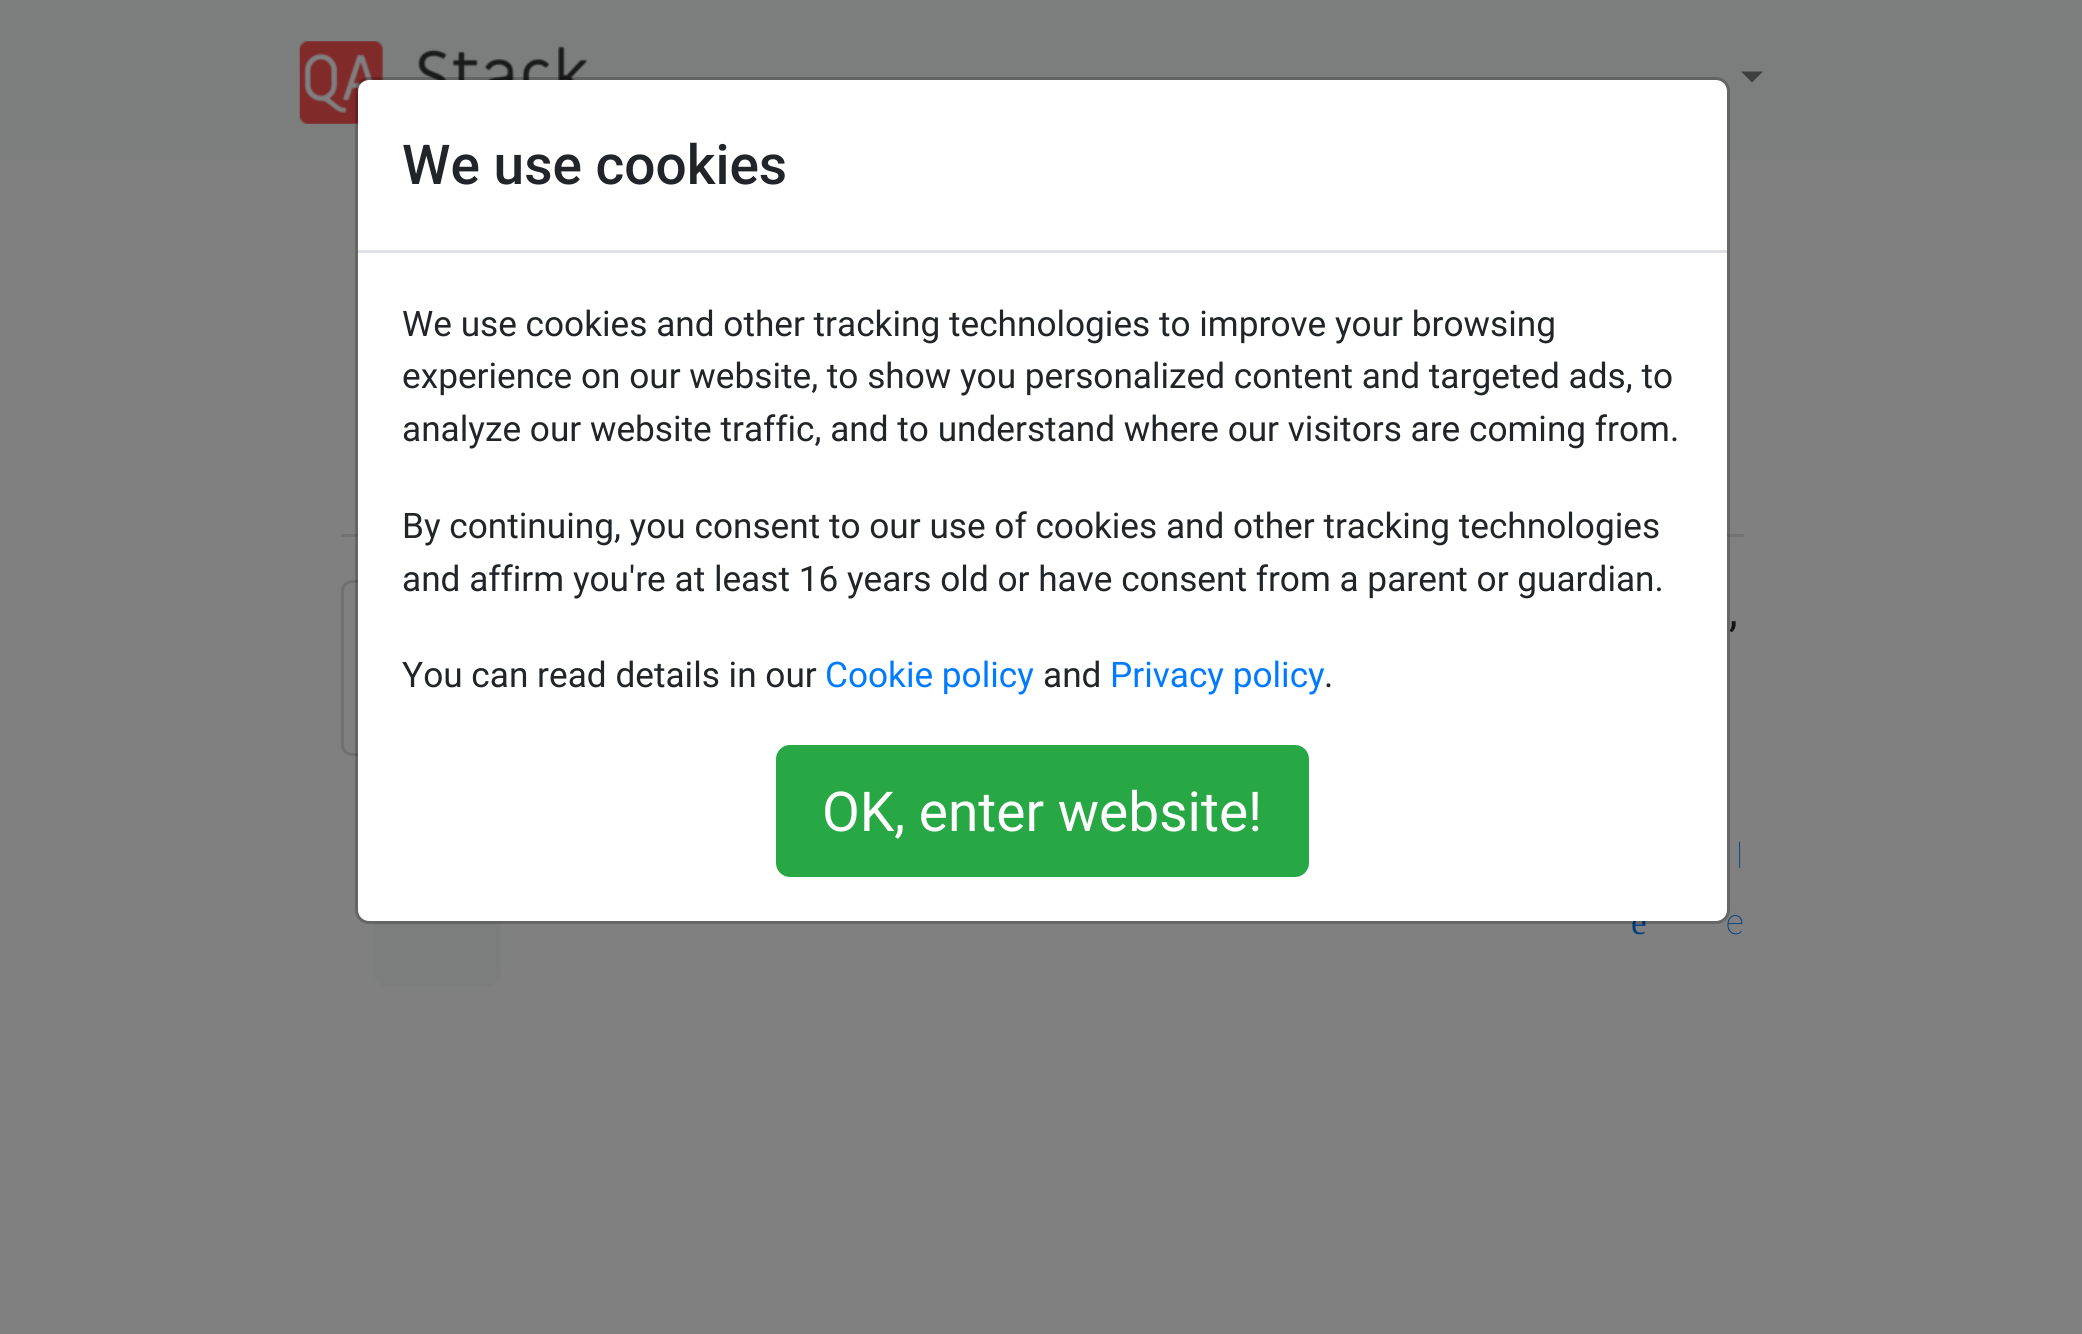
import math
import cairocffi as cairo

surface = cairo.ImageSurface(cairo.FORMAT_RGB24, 2082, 1334)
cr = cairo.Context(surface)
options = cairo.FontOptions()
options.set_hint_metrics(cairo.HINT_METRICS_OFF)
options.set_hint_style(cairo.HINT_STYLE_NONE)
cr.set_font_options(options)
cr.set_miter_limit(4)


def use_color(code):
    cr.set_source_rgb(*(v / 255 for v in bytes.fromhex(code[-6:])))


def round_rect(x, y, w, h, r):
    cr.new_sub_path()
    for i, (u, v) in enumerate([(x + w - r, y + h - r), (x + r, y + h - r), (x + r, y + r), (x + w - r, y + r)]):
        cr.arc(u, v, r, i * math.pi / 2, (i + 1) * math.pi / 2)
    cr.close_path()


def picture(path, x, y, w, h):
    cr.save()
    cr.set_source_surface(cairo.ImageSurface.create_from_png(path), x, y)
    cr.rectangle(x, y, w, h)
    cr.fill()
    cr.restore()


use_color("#808080")
cr.paint()
use_color("#7c7d7d")
cr.rectangle(0, 0, 2082, 160)
cr.fill()
picture("img1.png", 299, 41, 289, 83)
use_color("#3e3f3f")
cr.new_path()
cr.move_to(1741, 71.5)
cr.line_to(1763, 71.5)
cr.line_to(1752, 82.5)
cr.close_path()
cr.fill()
use_color("#737373")
cr.rectangle(341, 534, 1403, 3)
cr.fill()
round_rect(342.5, 581.5, 190, 173, 9.5)
use_color("#6f7173")
cr.set_line_width(3)
cr.stroke()
use_color("#7c7d7d")
round_rect(374, 800, 127, 187, 14)
cr.fill()
cr.select_font_face("Liberation Serif")
cr.set_font_size(35.2)
use_color("#003e80")
cr.move_to(1631, 934)
cr.show_text("e")
use_color("#ffffff")
round_rect(358, 80, 1369, 841, 11)
cr.fill()
cr.select_font_face("Roboto Thin")
use_color("#003e80")
cr.move_to(1726, 934)
cr.show_text("e")
round_rect(356.5, 78.5, 1372, 844, 12.5)
cr.set_source_rgba(0, 0, 0, 0.2)
cr.stroke()
use_color("#dee2e6")
cr.rectangle(358, 250, 1369, 3)
cr.fill()
cr.select_font_face("Roboto Medium")
cr.set_font_size(55)
use_color("#212529")
cr.move_to(402, 184)
cr.show_text("We use cookies")
cr.select_font_face("Roboto")
cr.set_font_size(35.2)
cr.move_to(402, 336)
cr.show_text("We use cookies and other tracking technologies to improve your browsing")
cr.move_to(402, 388)
cr.show_text("experience on our website, to show you personalized content and targeted ads, to")
cr.move_to(402, 441)
cr.show_text("analyze our website traffic, and to understand where our visitors are coming from.")
cr.move_to(402, 538)
cr.show_text("By continuing, you consent to our use of cookies and other tracking technologies")
cr.move_to(402, 591)
cr.show_text("and affirm you're at least 16 years old or have consent from a parent or guardian.")
cr.move_to(402, 687)
cr.show_text("You can read details in our")
use_color("#007bff")
cr.move_to(825, 687)
cr.show_text("Cookie policy")
use_color("#212529")
cr.move_to(1043, 687)
cr.show_text("and")
use_color("#007bff")
cr.move_to(1110, 687)
cr.show_text("Privacy policy")
use_color("#212529")
cr.move_to(1324, 687)
cr.show_text(".")
use_color("#28a745")
round_rect(777.5, 746.5, 530, 129, 12.5)
cr.fill_preserve()
cr.stroke()
cr.set_font_size(55)
use_color("#ffffff")
cr.move_to(822, 831)
cr.show_text("OK, enter website!")
cr.set_font_size(44)
use_color("#111315")
cr.move_to(1729, 626)
cr.show_text(",")
cr.select_font_face("Roboto Thin")
cr.set_font_size(35.2)
use_color("#003e80")
cr.move_to(1736, 868)
cr.show_text("l")
surface.write_to_png("result.png")
